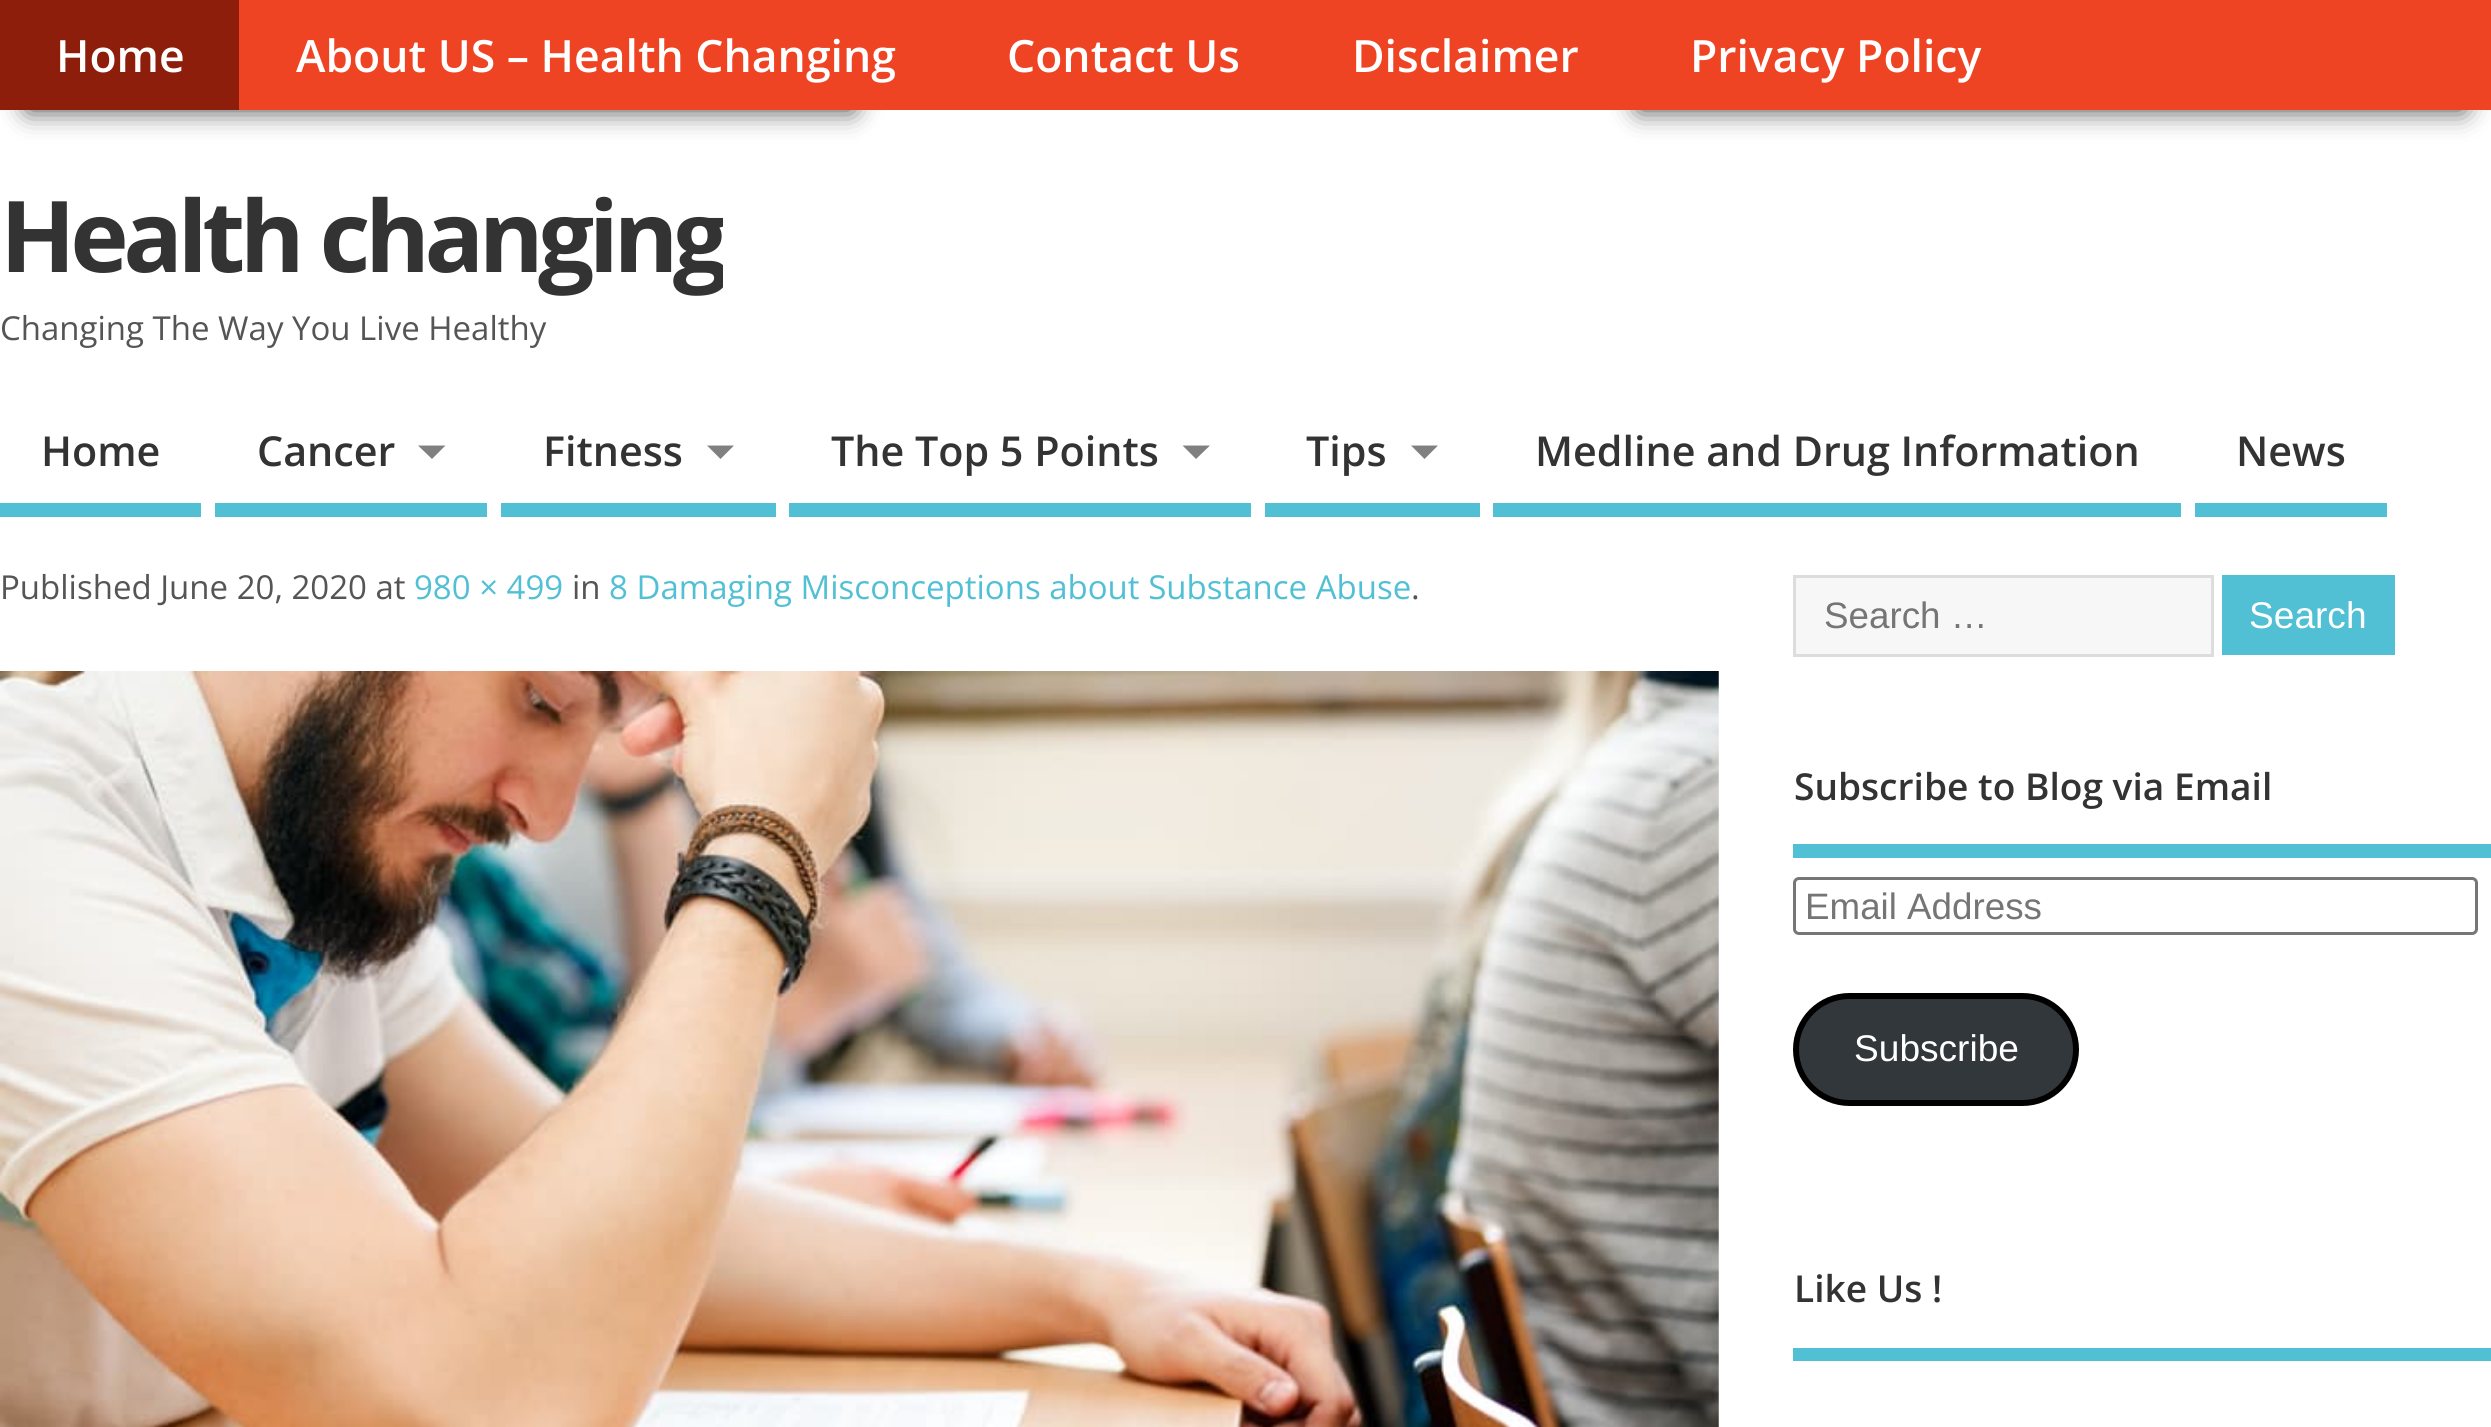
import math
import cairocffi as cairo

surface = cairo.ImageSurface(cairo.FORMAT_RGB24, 2491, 1427)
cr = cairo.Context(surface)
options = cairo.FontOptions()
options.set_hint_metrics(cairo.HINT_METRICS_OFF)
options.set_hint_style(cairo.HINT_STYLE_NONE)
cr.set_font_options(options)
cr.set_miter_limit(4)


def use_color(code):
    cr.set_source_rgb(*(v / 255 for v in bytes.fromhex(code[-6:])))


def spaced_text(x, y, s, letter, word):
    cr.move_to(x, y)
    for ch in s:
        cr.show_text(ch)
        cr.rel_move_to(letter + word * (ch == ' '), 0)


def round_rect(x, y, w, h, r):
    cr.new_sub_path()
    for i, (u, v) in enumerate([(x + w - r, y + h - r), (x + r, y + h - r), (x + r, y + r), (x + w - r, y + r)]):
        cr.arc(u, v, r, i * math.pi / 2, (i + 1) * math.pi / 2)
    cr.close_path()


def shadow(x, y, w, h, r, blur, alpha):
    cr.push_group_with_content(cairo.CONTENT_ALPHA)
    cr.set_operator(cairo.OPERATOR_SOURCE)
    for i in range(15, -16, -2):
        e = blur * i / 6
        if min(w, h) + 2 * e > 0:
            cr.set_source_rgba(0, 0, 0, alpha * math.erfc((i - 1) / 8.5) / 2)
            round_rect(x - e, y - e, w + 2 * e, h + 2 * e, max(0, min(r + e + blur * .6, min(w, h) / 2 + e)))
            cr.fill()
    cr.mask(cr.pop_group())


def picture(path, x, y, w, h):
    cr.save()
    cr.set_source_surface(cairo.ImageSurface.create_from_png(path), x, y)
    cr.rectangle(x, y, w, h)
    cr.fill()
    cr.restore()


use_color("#ffffff")
cr.paint()
use_color("#000000")
shadow(28, 88, 825, 22, 0, 13.5, 0.75)
shadow(1639, 88, 825, 22, 0, 13.5, 0.75)
use_color("#ef4423")
cr.rectangle(239, 0, 2252, 110)
cr.fill()
use_color("#8e1e0c")
cr.rectangle(0, 0, 239, 110)
cr.fill()
cr.select_font_face("Open Sans SemiBold")
cr.set_font_size(44.5)
use_color("#ffffff")
cr.move_to(56, 72)
cr.show_text("Home")
cr.move_to(296, 72)
cr.show_text("About US – Health Changing")
cr.move_to(1007, 72)
cr.show_text("Contact Us")
cr.move_to(1352, 72)
cr.show_text("Disclaimer")
cr.move_to(1690, 72)
cr.show_text("Privacy Policy")
cr.save()
cr.rectangle(0, 110, 723, 239)
cr.clip()
cr.select_font_face("Open Sans", cairo.FONT_SLANT_NORMAL, cairo.FONT_WEIGHT_BOLD)
cr.set_font_size(99)
use_color("#333333")
spaced_text(0, 272, "Health changing", -5.5, 0)
cr.restore()
cr.select_font_face("Open Sans")
cr.set_font_size(33)
use_color("#555555")
cr.move_to(0, 340)
cr.show_text("Changing The Way You Live Healthy")
use_color("#52c0d4")
cr.rectangle(0, 503, 201, 14)
cr.fill()
cr.select_font_face("Open Sans SemiBold")
cr.set_font_size(41.25)
use_color("#333333")
cr.move_to(41, 466)
cr.show_text("Home")
use_color("#52c0d4")
cr.rectangle(215, 503, 272, 14)
cr.fill()
use_color("#333333")
cr.move_to(257, 466)
cr.show_text("Cancer")
use_color("#808080")
cr.new_path()
cr.move_to(418, 445.5)
cr.line_to(445.5, 445.5)
cr.line_to(432, 459)
cr.close_path()
cr.fill()
use_color("#52c0d4")
cr.rectangle(501, 503, 275, 14)
cr.fill()
use_color("#333333")
cr.move_to(543, 466)
cr.show_text("Fitness")
use_color("#808080")
cr.new_path()
cr.move_to(707, 445.5)
cr.line_to(734, 445.5)
cr.line_to(720.5, 459)
cr.close_path()
cr.fill()
use_color("#52c0d4")
cr.rectangle(789, 503, 462, 14)
cr.fill()
use_color("#333333")
cr.move_to(831, 466)
cr.show_text("The Top 5 Points")
use_color("#808080")
cr.new_path()
cr.move_to(1182.5, 445.5)
cr.line_to(1210, 445.5)
cr.line_to(1196, 459)
cr.close_path()
cr.fill()
use_color("#52c0d4")
cr.rectangle(1265, 503, 215, 14)
cr.fill()
use_color("#333333")
cr.move_to(1306, 466)
cr.show_text("Tips")
use_color("#808080")
cr.new_path()
cr.move_to(1411, 445.5)
cr.line_to(1438, 445.5)
cr.line_to(1424.5, 459)
cr.close_path()
cr.fill()
use_color("#52c0d4")
cr.rectangle(1493, 503, 688, 14)
cr.fill()
use_color("#333333")
cr.move_to(1535, 466)
cr.show_text("Medline and Drug Information")
use_color("#52c0d4")
cr.rectangle(2195, 503, 192, 14)
cr.fill()
use_color("#333333")
cr.move_to(2236, 466)
cr.show_text("News")
cr.select_font_face("Open Sans")
cr.set_font_size(33)
use_color("#555555")
cr.move_to(0, 599)
cr.show_text("Published June 20, 2020 at")
use_color("#52c0d4")
cr.move_to(414, 599)
cr.show_text("980 × 499")
use_color("#555555")
cr.move_to(572, 599)
cr.show_text("in")
use_color("#52c0d4")
cr.move_to(609, 599)
cr.show_text("8 Damaging Misconceptions about Substance Abuse")
use_color("#555555")
cr.move_to(1411, 599)
cr.show_text(".")
picture("img1.png", 0, 671, 1719, 756)
use_color("#f7f7f7")
cr.rectangle(1794.5, 576.5, 418, 79)
cr.fill_preserve()
use_color("#dddddd")
cr.set_line_width(3)
cr.stroke()
cr.select_font_face("Liberation Sans")
cr.set_font_size(36.75)
use_color("#757575")
cr.move_to(1824, 628)
cr.show_text("Search …")
use_color("#52c0d4")
cr.rectangle(2222, 575, 173, 80)
cr.fill()
cr.set_font_size(37.1)
use_color("#ffffff")
cr.move_to(2249, 628)
cr.show_text("Search")
use_color("#52c0d4")
cr.rectangle(1793, 844, 698, 14)
cr.fill()
cr.select_font_face("Open Sans SemiBold")
use_color("#333333")
cr.move_to(1794, 800)
cr.show_text("Subscribe to Blog via Email")
round_rect(1794.5, 878.5, 682, 55, 4.5)
use_color("#767676")
cr.stroke()
cr.select_font_face("Liberation Sans")
cr.set_font_size(36.75)
use_color("#757575")
cr.move_to(1805, 919)
cr.show_text("Email Address")
use_color("#32373c")
round_rect(1796, 996, 280, 107, 53.5)
cr.fill_preserve()
use_color("#000000")
cr.set_line_width(6)
cr.stroke()
cr.set_font_size(37.1)
use_color("#ffffff")
cr.move_to(1854, 1061)
cr.show_text("Subscribe")
use_color("#52c0d4")
cr.rectangle(1793, 1348, 698, 13)
cr.fill()
cr.select_font_face("Open Sans SemiBold")
use_color("#333333")
cr.move_to(1794, 1302)
cr.show_text("Like Us !")
surface.write_to_png("result.png")
